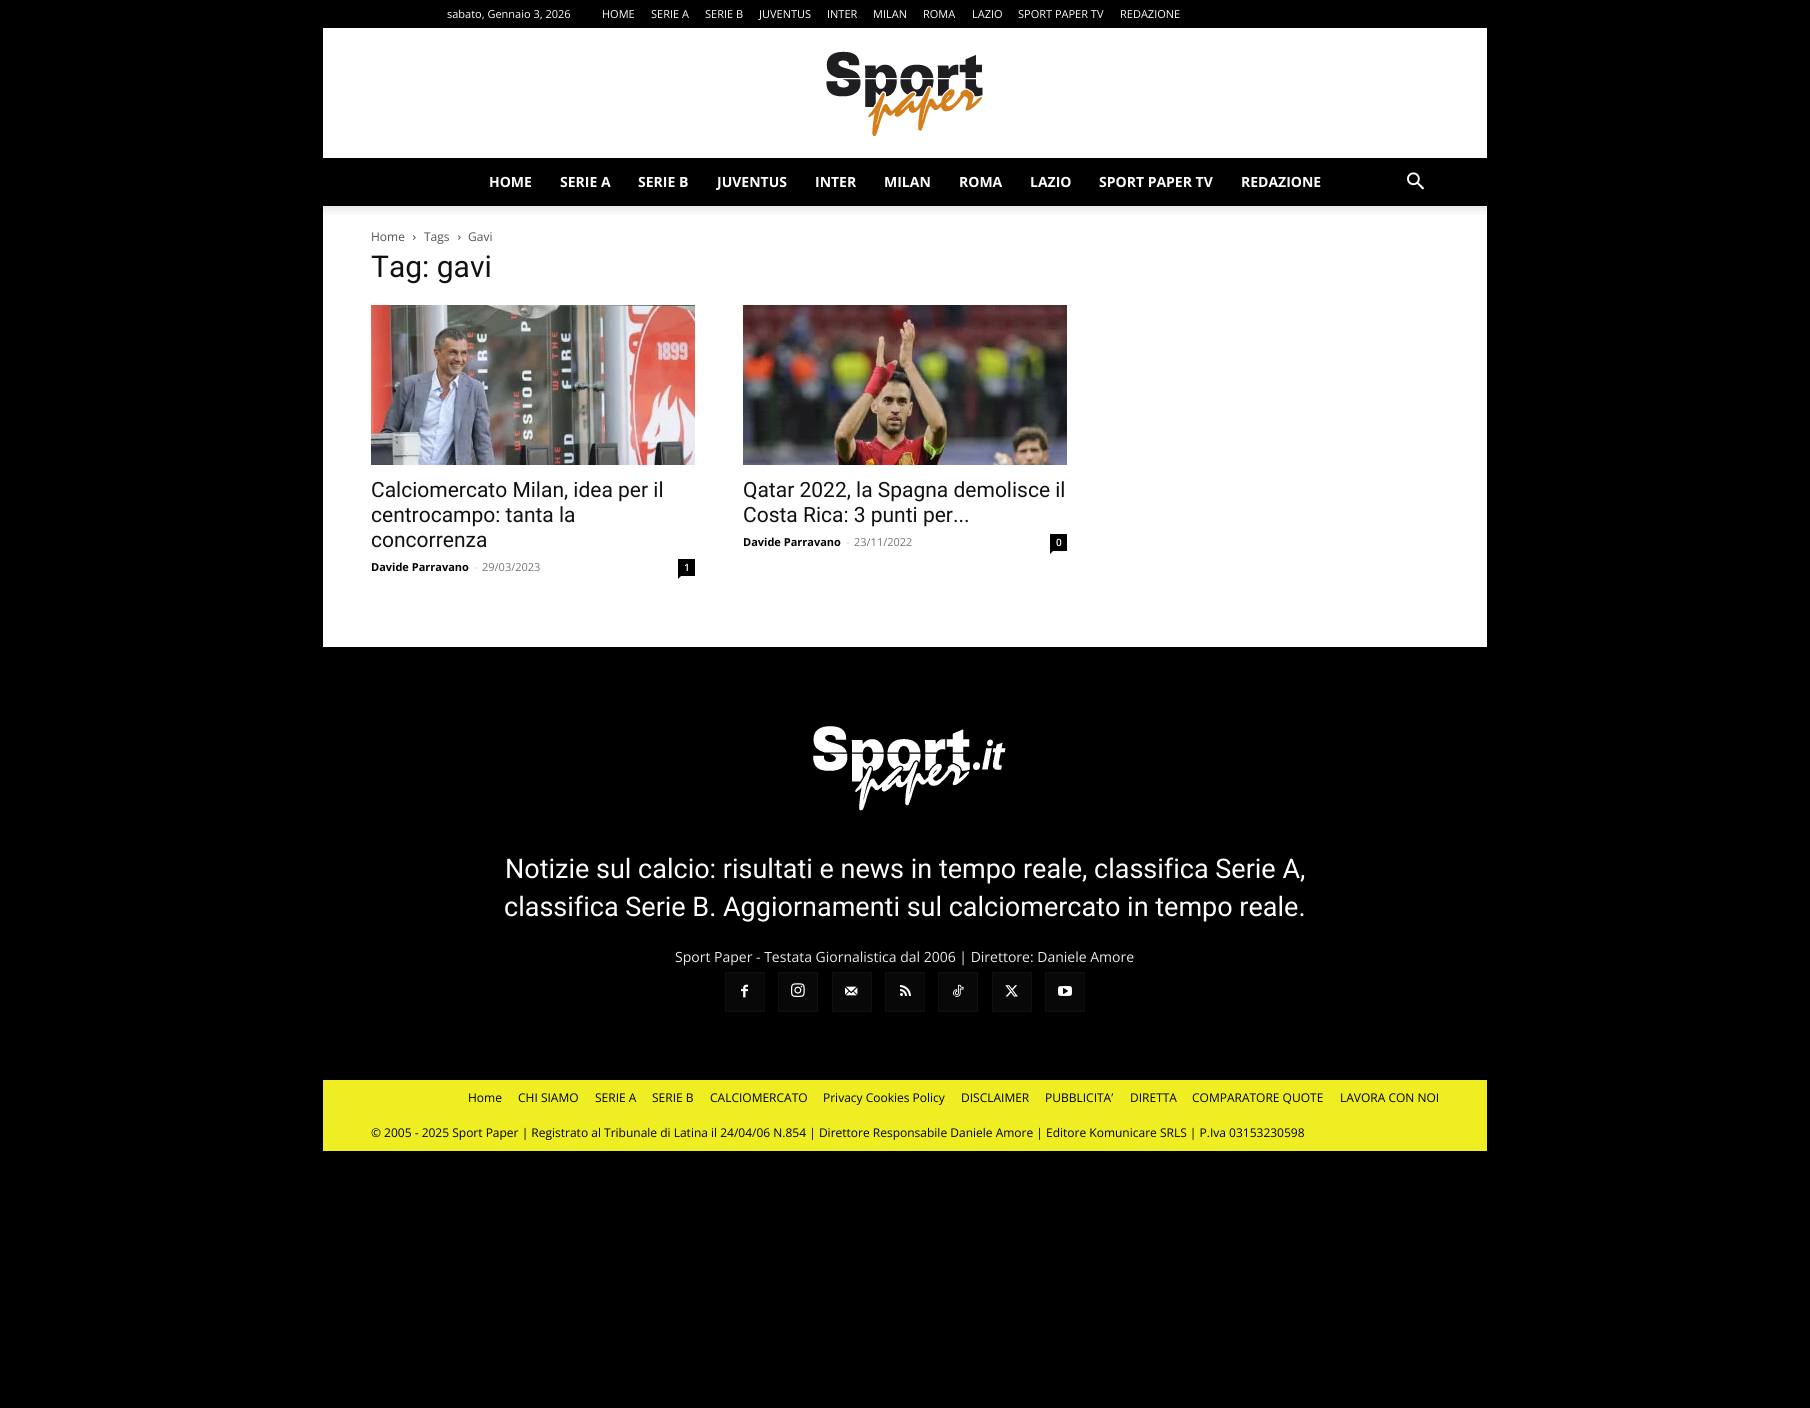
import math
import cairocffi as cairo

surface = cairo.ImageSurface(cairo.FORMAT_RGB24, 1810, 1408)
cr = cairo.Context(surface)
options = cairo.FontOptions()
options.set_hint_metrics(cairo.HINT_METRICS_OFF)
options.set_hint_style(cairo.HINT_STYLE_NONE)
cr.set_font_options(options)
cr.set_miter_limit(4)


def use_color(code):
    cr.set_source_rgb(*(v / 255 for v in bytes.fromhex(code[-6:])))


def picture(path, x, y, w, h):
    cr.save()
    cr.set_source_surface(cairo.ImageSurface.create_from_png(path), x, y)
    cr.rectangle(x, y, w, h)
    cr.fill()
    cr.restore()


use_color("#000000")
cr.paint()
cr.select_font_face("Open Sans")
cr.set_font_size(11)
use_color("#ffffff")
cr.move_to(447, 18)
cr.show_text("sabato, Gennaio 3, 2026")
cr.move_to(602, 18)
cr.show_text("HOME")
cr.move_to(651, 18)
cr.show_text("SERIE A")
cr.move_to(705, 18)
cr.show_text("SERIE B")
cr.move_to(759, 18)
cr.show_text("JUVENTUS")
cr.move_to(827, 18)
cr.show_text("INTER")
cr.move_to(873, 18)
cr.show_text("MILAN")
cr.move_to(923, 18)
cr.show_text("ROMA")
cr.move_to(972, 18)
cr.show_text("LAZIO")
cr.move_to(1018, 18)
cr.show_text("SPORT PAPER TV")
cr.move_to(1120, 18)
cr.show_text("REDAZIONE")
cr.rectangle(323, 28, 1164, 130)
cr.fill()
picture("img1.png", 826, 51, 157, 86)
cr.select_font_face("Open Sans", cairo.FONT_SLANT_NORMAL, cairo.FONT_WEIGHT_BOLD)
cr.set_font_size(14)
cr.move_to(489, 187)
cr.show_text("HOME")
cr.move_to(560, 187)
cr.show_text("SERIE A")
cr.move_to(638, 187)
cr.show_text("SERIE B")
cr.move_to(717, 187)
cr.show_text("JUVENTUS")
cr.move_to(815, 187)
cr.show_text("INTER")
cr.move_to(884, 187)
cr.show_text("MILAN")
cr.move_to(959, 187)
cr.show_text("ROMA")
cr.move_to(1030, 187)
cr.show_text("LAZIO")
cr.move_to(1099, 187)
cr.show_text("SPORT PAPER TV")
cr.move_to(1241, 187)
cr.show_text("REDAZIONE")
picture("img2.png", 1407, 172, 17, 18)
cr.rectangle(323, 206, 1164, 441)
cr.fill()
picture("img3.png", 323, 206, 1164, 9)
cr.select_font_face("Open Sans")
cr.set_font_size(12)
use_color("#525252")
cr.move_to(371, 241)
cr.show_text("Home")
picture("img4.png", 413, 235, 3, 5)
cr.move_to(424, 241)
cr.show_text("Tags")
picture("img4.png", 458, 235, 3, 5)
cr.move_to(468, 241)
cr.show_text("Gavi")
cr.select_font_face("Roboto")
cr.set_font_size(30)
use_color("#111111")
cr.move_to(371, 277)
cr.show_text("Tag: gavi")
picture("img5.png", 371, 305, 324, 160)
cr.set_font_size(21)
cr.move_to(371, 497)
cr.show_text("Calciomercato Milan, idea per il")
cr.move_to(371, 522)
cr.show_text("centrocampo: tanta la")
cr.move_to(371, 547)
cr.show_text("concorrenza")
cr.select_font_face("Open Sans", cairo.FONT_SLANT_NORMAL, cairo.FONT_WEIGHT_BOLD)
cr.set_font_size(11)
use_color("#000000")
cr.move_to(371, 571)
cr.show_text("Davide Parravano")
cr.select_font_face("Open Sans")
use_color("#cccccc")
cr.move_to(474, 571)
cr.show_text("-")
use_color("#767676")
cr.move_to(482, 571)
cr.show_text("29/03/2023")
use_color("#000000")
cr.rectangle(678, 559, 17, 17)
cr.fill()
cr.select_font_face("Open Sans SemiBold")
cr.set_font_size(10)
use_color("#ffffff")
cr.move_to(684, 571)
cr.show_text("1")
use_color("#000000")
cr.new_path()
cr.move_to(678, 576)
cr.line_to(681, 576)
cr.line_to(678, 579)
cr.close_path()
cr.fill()
picture("img6.png", 743, 305, 324, 160)
cr.select_font_face("Roboto")
cr.set_font_size(21)
use_color("#111111")
cr.move_to(743, 497)
cr.show_text("Qatar 2022, la Spagna demolisce il")
cr.move_to(743, 522)
cr.show_text("Costa Rica: 3 punti per...")
cr.select_font_face("Open Sans", cairo.FONT_SLANT_NORMAL, cairo.FONT_WEIGHT_BOLD)
cr.set_font_size(11)
use_color("#000000")
cr.move_to(743, 546)
cr.show_text("Davide Parravano")
cr.select_font_face("Open Sans")
use_color("#cccccc")
cr.move_to(846, 546)
cr.show_text("-")
use_color("#767676")
cr.move_to(854, 546)
cr.show_text("23/11/2022")
use_color("#000000")
cr.rectangle(1050, 534, 17, 17)
cr.fill()
cr.select_font_face("Open Sans SemiBold")
cr.set_font_size(10)
use_color("#ffffff")
cr.move_to(1056, 546)
cr.show_text("0")
use_color("#000000")
cr.new_path()
cr.move_to(1050, 551)
cr.line_to(1053, 551)
cr.line_to(1050, 554)
cr.close_path()
cr.fill()
picture("img7.png", 813, 726, 193, 85)
cr.select_font_face("Roboto")
cr.set_font_size(27)
use_color("#ffffff")
cr.move_to(505, 878)
cr.show_text("Notizie sul calcio: risultati e news in tempo reale, classifica Serie A,")
cr.move_to(504, 916)
cr.show_text("classifica Serie B. Aggiornamenti sul calciomercato in tempo reale.")
cr.select_font_face("Open Sans")
cr.set_font_size(14)
use_color("#eaeaea")
cr.move_to(675, 962)
cr.show_text("Sport Paper - Testata Giornalistica dal 2006 | Direttore: Daniele Amore")
use_color("#080808")
cr.rectangle(726, 973, 38, 38)
cr.fill()
picture("img8.png", 741, 984, 7, 14)
cr.rectangle(725.5, 972.5, 39, 39)
use_color("#0f0f0f")
cr.set_line_width(1)
cr.stroke()
use_color("#080808")
cr.rectangle(779, 973, 38, 38)
cr.fill()
picture("img9.png", 791, 983, 14, 14)
cr.rectangle(778.5, 972.5, 39, 39)
use_color("#0f0f0f")
cr.stroke()
use_color("#080808")
cr.rectangle(833, 973, 38, 38)
cr.fill()
picture("img10.png", 845, 986, 13, 10)
cr.rectangle(832.5, 972.5, 39, 39)
use_color("#0f0f0f")
cr.stroke()
use_color("#080808")
cr.rectangle(886, 973, 38, 38)
cr.fill()
picture("img11.png", 900, 985, 11, 11)
cr.rectangle(885.5, 972.5, 39, 39)
use_color("#0f0f0f")
cr.stroke()
use_color("#080808")
cr.rectangle(939, 973, 38, 38)
cr.fill()
picture("img12.png", 953, 984, 11, 13)
cr.rectangle(938.5, 972.5, 39, 39)
use_color("#0f0f0f")
cr.stroke()
use_color("#080808")
cr.rectangle(993, 973, 38, 38)
cr.fill()
picture("img13.png", 1005, 985, 13, 12)
cr.rectangle(992.5, 972.5, 39, 39)
use_color("#0f0f0f")
cr.stroke()
use_color("#080808")
cr.rectangle(1046, 973, 38, 38)
cr.fill()
picture("img14.png", 1058, 986, 14, 10)
cr.rectangle(1045.5, 972.5, 39, 39)
use_color("#0f0f0f")
cr.stroke()
use_color("#eeee22")
cr.rectangle(323, 1080, 1164, 71)
cr.fill()
cr.set_font_size(12)
use_color("#000000")
cr.move_to(468, 1102)
cr.show_text("Home")
cr.move_to(518, 1102)
cr.show_text("CHI SIAMO")
cr.move_to(595, 1102)
cr.show_text("SERIE A")
cr.move_to(652, 1102)
cr.show_text("SERIE B")
cr.move_to(710, 1102)
cr.show_text("CALCIOMERCATO")
cr.move_to(823, 1102)
cr.show_text("Privacy Cookies Policy")
cr.move_to(961, 1102)
cr.show_text("DISCLAIMER")
cr.move_to(1045, 1102)
cr.show_text("PUBBLICITA’")
cr.move_to(1130, 1102)
cr.show_text("DIRETTA")
cr.move_to(1192, 1102)
cr.show_text("COMPARATORE QUOTE")
cr.move_to(1340, 1102)
cr.show_text("LAVORA CON NOI")
cr.move_to(371, 1137)
cr.show_text("© 2005 - 2025 Sport Paper | Registrato al Tribunale di Latina il 24/04/06 N.854 | Direttore Responsabile Daniele Amore | Editore Komunicare SRLS | P.Iva 03153230598")
surface.write_to_png("result.png")
